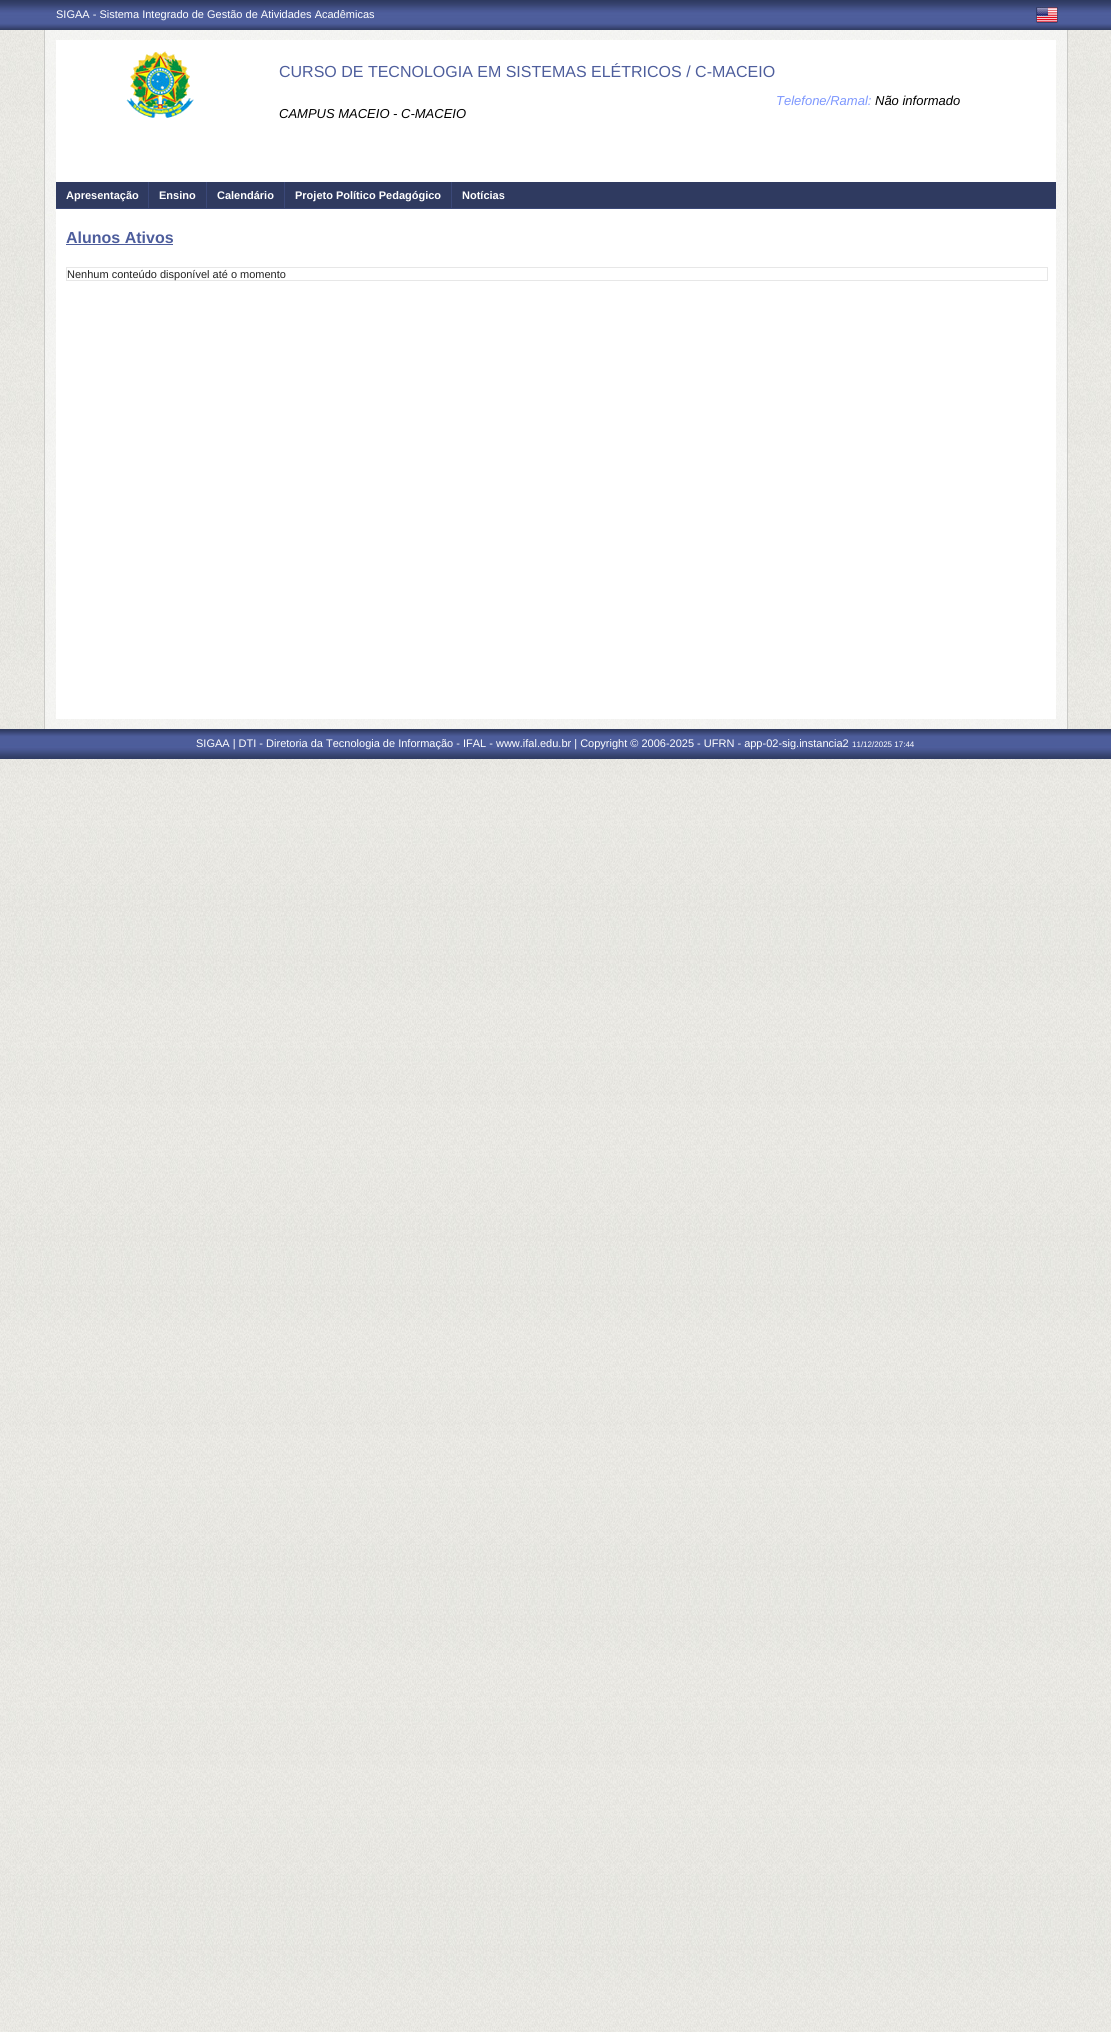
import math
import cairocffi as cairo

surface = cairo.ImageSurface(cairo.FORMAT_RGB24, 1111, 2032)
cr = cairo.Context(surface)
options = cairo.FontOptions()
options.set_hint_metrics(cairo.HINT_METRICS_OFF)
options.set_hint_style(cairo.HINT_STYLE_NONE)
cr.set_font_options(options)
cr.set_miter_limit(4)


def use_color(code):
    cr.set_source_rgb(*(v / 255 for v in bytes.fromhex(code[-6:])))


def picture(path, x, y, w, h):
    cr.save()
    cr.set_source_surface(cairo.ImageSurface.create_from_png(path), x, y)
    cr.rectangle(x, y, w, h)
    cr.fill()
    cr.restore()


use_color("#ffffff")
cr.paint()
picture("img1.png", 0, 30, 1111, 2002)
picture("img2.png", 0, 0, 1111, 30)
picture("img3.png", 0, 729, 1111, 30)
cr.select_font_face("Liberation Sans")
cr.set_font_size(11)
use_color("#ffffff")
cr.move_to(56, 18)
cr.show_text("SIGAA - Sistema Integrado de Gestão de Atividades Acadêmicas")
picture("img4.png", 1036, 7, 22, 16)
picture("img5.png", 45, 30, 1022, 699)
use_color("#cacac7")
cr.rectangle(1067, 30, 1, 699)
cr.fill()
cr.rectangle(44, 30, 1, 699)
cr.fill()
use_color("#ffffff")
cr.rectangle(56, 40, 1000, 679)
cr.fill()
picture("img6.png", 126, 51, 68, 67)
cr.set_font_size(16)
use_color("#4d5d9c")
cr.move_to(279, 77)
cr.show_text("CURSO DE TECNOLOGIA EM SISTEMAS ELÉTRICOS / C-MACEIO")
cr.select_font_face("Liberation Sans", cairo.FONT_SLANT_ITALIC)
cr.set_font_size(13)
use_color("#7d97fe")
cr.move_to(776, 105)
cr.show_text("Telefone/Ramal:")
use_color("#000000")
cr.move_to(875, 105)
cr.show_text("Não informado")
cr.move_to(279, 118)
cr.show_text("CAMPUS MACEIO - C-MACEIO")
use_color("#2f3a60")
cr.rectangle(56, 182, 1000, 26)
cr.fill()
use_color("#3b4878")
cr.rectangle(56, 208, 1000, 1)
cr.fill()
cr.select_font_face("Liberation Sans", cairo.FONT_SLANT_NORMAL, cairo.FONT_WEIGHT_BOLD)
cr.set_font_size(11)
use_color("#ffffff")
cr.move_to(66, 199)
cr.show_text("Apresentação")
use_color("#3b4878")
cr.rectangle(148, 182, 1, 27)
cr.fill()
use_color("#ffffff")
cr.move_to(159, 199)
cr.show_text("Ensino")
use_color("#3b4878")
cr.rectangle(206, 182, 1, 27)
cr.fill()
use_color("#ffffff")
cr.move_to(217, 199)
cr.show_text("Calendário")
use_color("#3b4878")
cr.rectangle(284, 182, 1, 27)
cr.fill()
use_color("#ffffff")
cr.move_to(295, 199)
cr.show_text("Projeto Político Pedagógico")
use_color("#3b4878")
cr.rectangle(451, 182, 1, 27)
cr.fill()
use_color("#ffffff")
cr.move_to(462, 199)
cr.show_text("Notícias")
cr.set_font_size(16)
use_color("#4d5d9c")
cr.move_to(66, 243)
cr.show_text("Alunos Ativos")
cr.rectangle(66, 244, 107, 1)
cr.fill()
cr.rectangle(66.5, 267.5, 981, 13)
use_color("#e7e7e7")
cr.set_line_width(1)
cr.stroke()
cr.select_font_face("Liberation Sans")
cr.set_font_size(11)
use_color("#222222")
cr.move_to(67, 278)
cr.show_text("Nenhum conteúdo disponível até o momento")
use_color("#ffffff")
cr.move_to(196, 747)
cr.show_text("SIGAA | DTI - Diretoria da Tecnologia de Informação - IFAL - www.ifal.edu.br | Copyright © 2006-2025 - UFRN - app-02-sig.instancia2")
cr.set_font_size(8)
cr.move_to(852, 747)
cr.show_text("11/12/2025 17:44")
surface.write_to_png("result.png")
